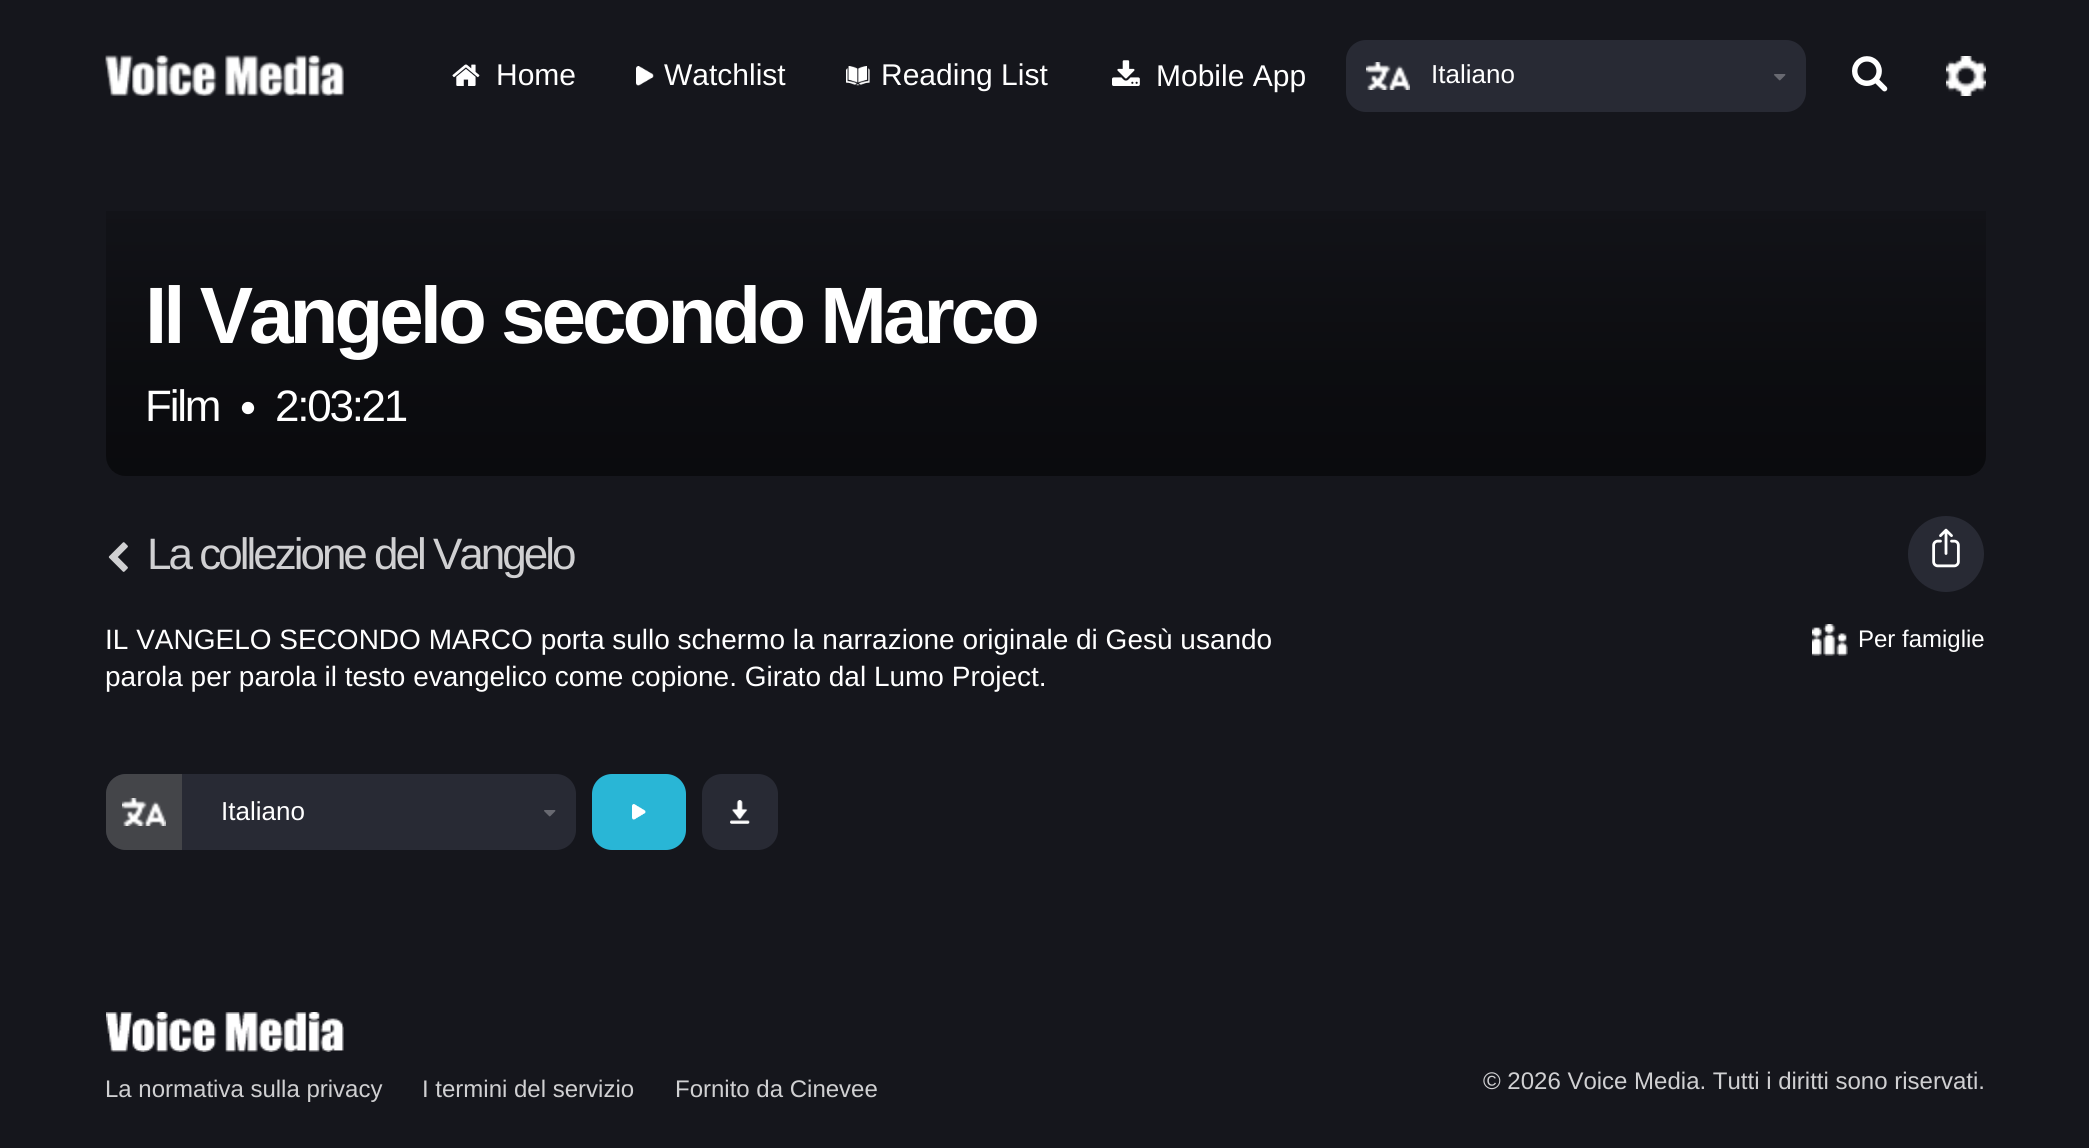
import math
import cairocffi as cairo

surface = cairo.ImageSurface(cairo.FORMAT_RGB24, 2089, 1148)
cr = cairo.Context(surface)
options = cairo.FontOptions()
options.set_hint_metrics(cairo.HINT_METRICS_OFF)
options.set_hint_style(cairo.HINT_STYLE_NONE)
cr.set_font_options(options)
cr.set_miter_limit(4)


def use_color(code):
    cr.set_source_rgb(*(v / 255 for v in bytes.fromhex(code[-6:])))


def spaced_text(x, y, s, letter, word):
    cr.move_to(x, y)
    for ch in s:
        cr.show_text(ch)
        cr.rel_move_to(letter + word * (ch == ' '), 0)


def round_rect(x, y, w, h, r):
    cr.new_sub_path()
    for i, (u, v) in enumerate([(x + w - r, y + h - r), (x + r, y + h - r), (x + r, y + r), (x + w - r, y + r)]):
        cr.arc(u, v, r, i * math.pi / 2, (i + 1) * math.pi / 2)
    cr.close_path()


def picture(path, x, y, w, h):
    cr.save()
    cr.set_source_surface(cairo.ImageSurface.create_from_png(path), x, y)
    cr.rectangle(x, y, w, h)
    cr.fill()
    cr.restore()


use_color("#15161c")
cr.paint()
picture("img1.png", 105, 55, 239, 41)
picture("img2.png", 452, 64, 28, 22)
cr.select_font_face("Liberation Sans")
cr.set_font_size(30)
use_color("#ffffff")
cr.move_to(496, 85)
cr.show_text("Home")
picture("img3.png", 636, 66, 18, 20)
cr.move_to(664, 85)
cr.show_text("Watchlist")
picture("img4.png", 846, 66, 24, 20)
cr.move_to(881, 85)
cr.show_text("Reading List")
picture("img5.png", 1112, 60, 28, 26)
cr.move_to(1156, 86)
cr.show_text("Mobile App")
use_color("#282a34")
round_rect(1346, 40, 460, 72, 20)
cr.fill()
picture("img6.png", 1366, 62, 44, 28)
cr.set_font_size(26)
use_color("#ffffff")
cr.move_to(1431, 83)
cr.show_text("Italiano")
picture("img7.png", 1774, 74, 12, 7)
picture("img8.png", 1852, 56, 36, 36)
picture("img9.png", 1946, 56, 40, 40)
picture("img10.png", 106, 211, 1880, 265)
cr.select_font_face("Liberation Sans", cairo.FONT_SLANT_NORMAL, cairo.FONT_WEIGHT_BOLD)
cr.set_font_size(80)
spaced_text(145, 343, "Il Vangelo secondo Marco", -4, 0)
cr.select_font_face("Liberation Sans")
cr.set_font_size(44)
spaced_text(145, 421, "Film", -2.25, 0)
picture("img11.png", 241, 401, 14, 14)
spaced_text(275, 421, "2:03:21", -2.25, 0)
picture("img12.png", 108, 542, 20, 30)
use_color("#d0d0d2")
spaced_text(147, 569, "La collezione del Vangelo", -3, 0)
cr.set_font_size(28)
use_color("#ffffff")
cr.move_to(105, 649)
cr.show_text("IL VANGELO SECONDO MARCO porta sullo schermo la narrazione originale di Gesù usando")
cr.move_to(105, 686)
cr.show_text("parola per parola il testo evangelico come copione. Girato dal Lumo Project.")
use_color("#282a34")
cr.new_path()
cr.arc(1946, 554, 38, 0, 2 * math.pi)
cr.fill()
picture("img13.png", 1932, 528, 28, 40)
picture("img14.png", 1812, 624, 36, 32)
cr.set_font_size(24)
use_color("#ffffff")
cr.move_to(1858, 647)
cr.show_text("Per famiglie")
use_color("#282a34")
round_rect(106, 774, 470, 76, 20)
cr.fill()
use_color("#444549")
cr.new_path()
cr.move_to(126, 774)
cr.line_to(182, 774)
cr.line_to(182, 850)
cr.line_to(126, 850)
cr.curve_to(115, 850, 106, 841, 106, 830)
cr.line_to(106, 794)
cr.curve_to(106, 783, 115, 774, 126, 774)
cr.close_path()
cr.fill()
picture("img15.png", 122, 798, 44, 28)
cr.set_font_size(26)
use_color("#ffffff")
cr.move_to(221, 820)
cr.show_text("Italiano")
picture("img7.png", 544, 810, 12, 7)
use_color("#29b6d6")
round_rect(592, 774, 94, 76, 20)
cr.fill()
picture("img16.png", 632, 804, 14, 16)
use_color("#282a34")
round_rect(702, 774, 76, 76, 20)
cr.fill()
picture("img17.png", 730, 800, 20, 24)
picture("img18.png", 106, 1012, 238, 40)
cr.set_font_size(24)
use_color("#d0d0d2")
cr.move_to(105, 1097)
cr.show_text("La normativa sulla privacy")
cr.move_to(422, 1097)
cr.show_text("I termini del servizio")
cr.move_to(675, 1097)
cr.show_text("Fornito da Cinevee")
cr.move_to(1483, 1089)
cr.show_text("© 2026 Voice Media. Tutti i diritti sono riservati.")
surface.write_to_png("result.png")
